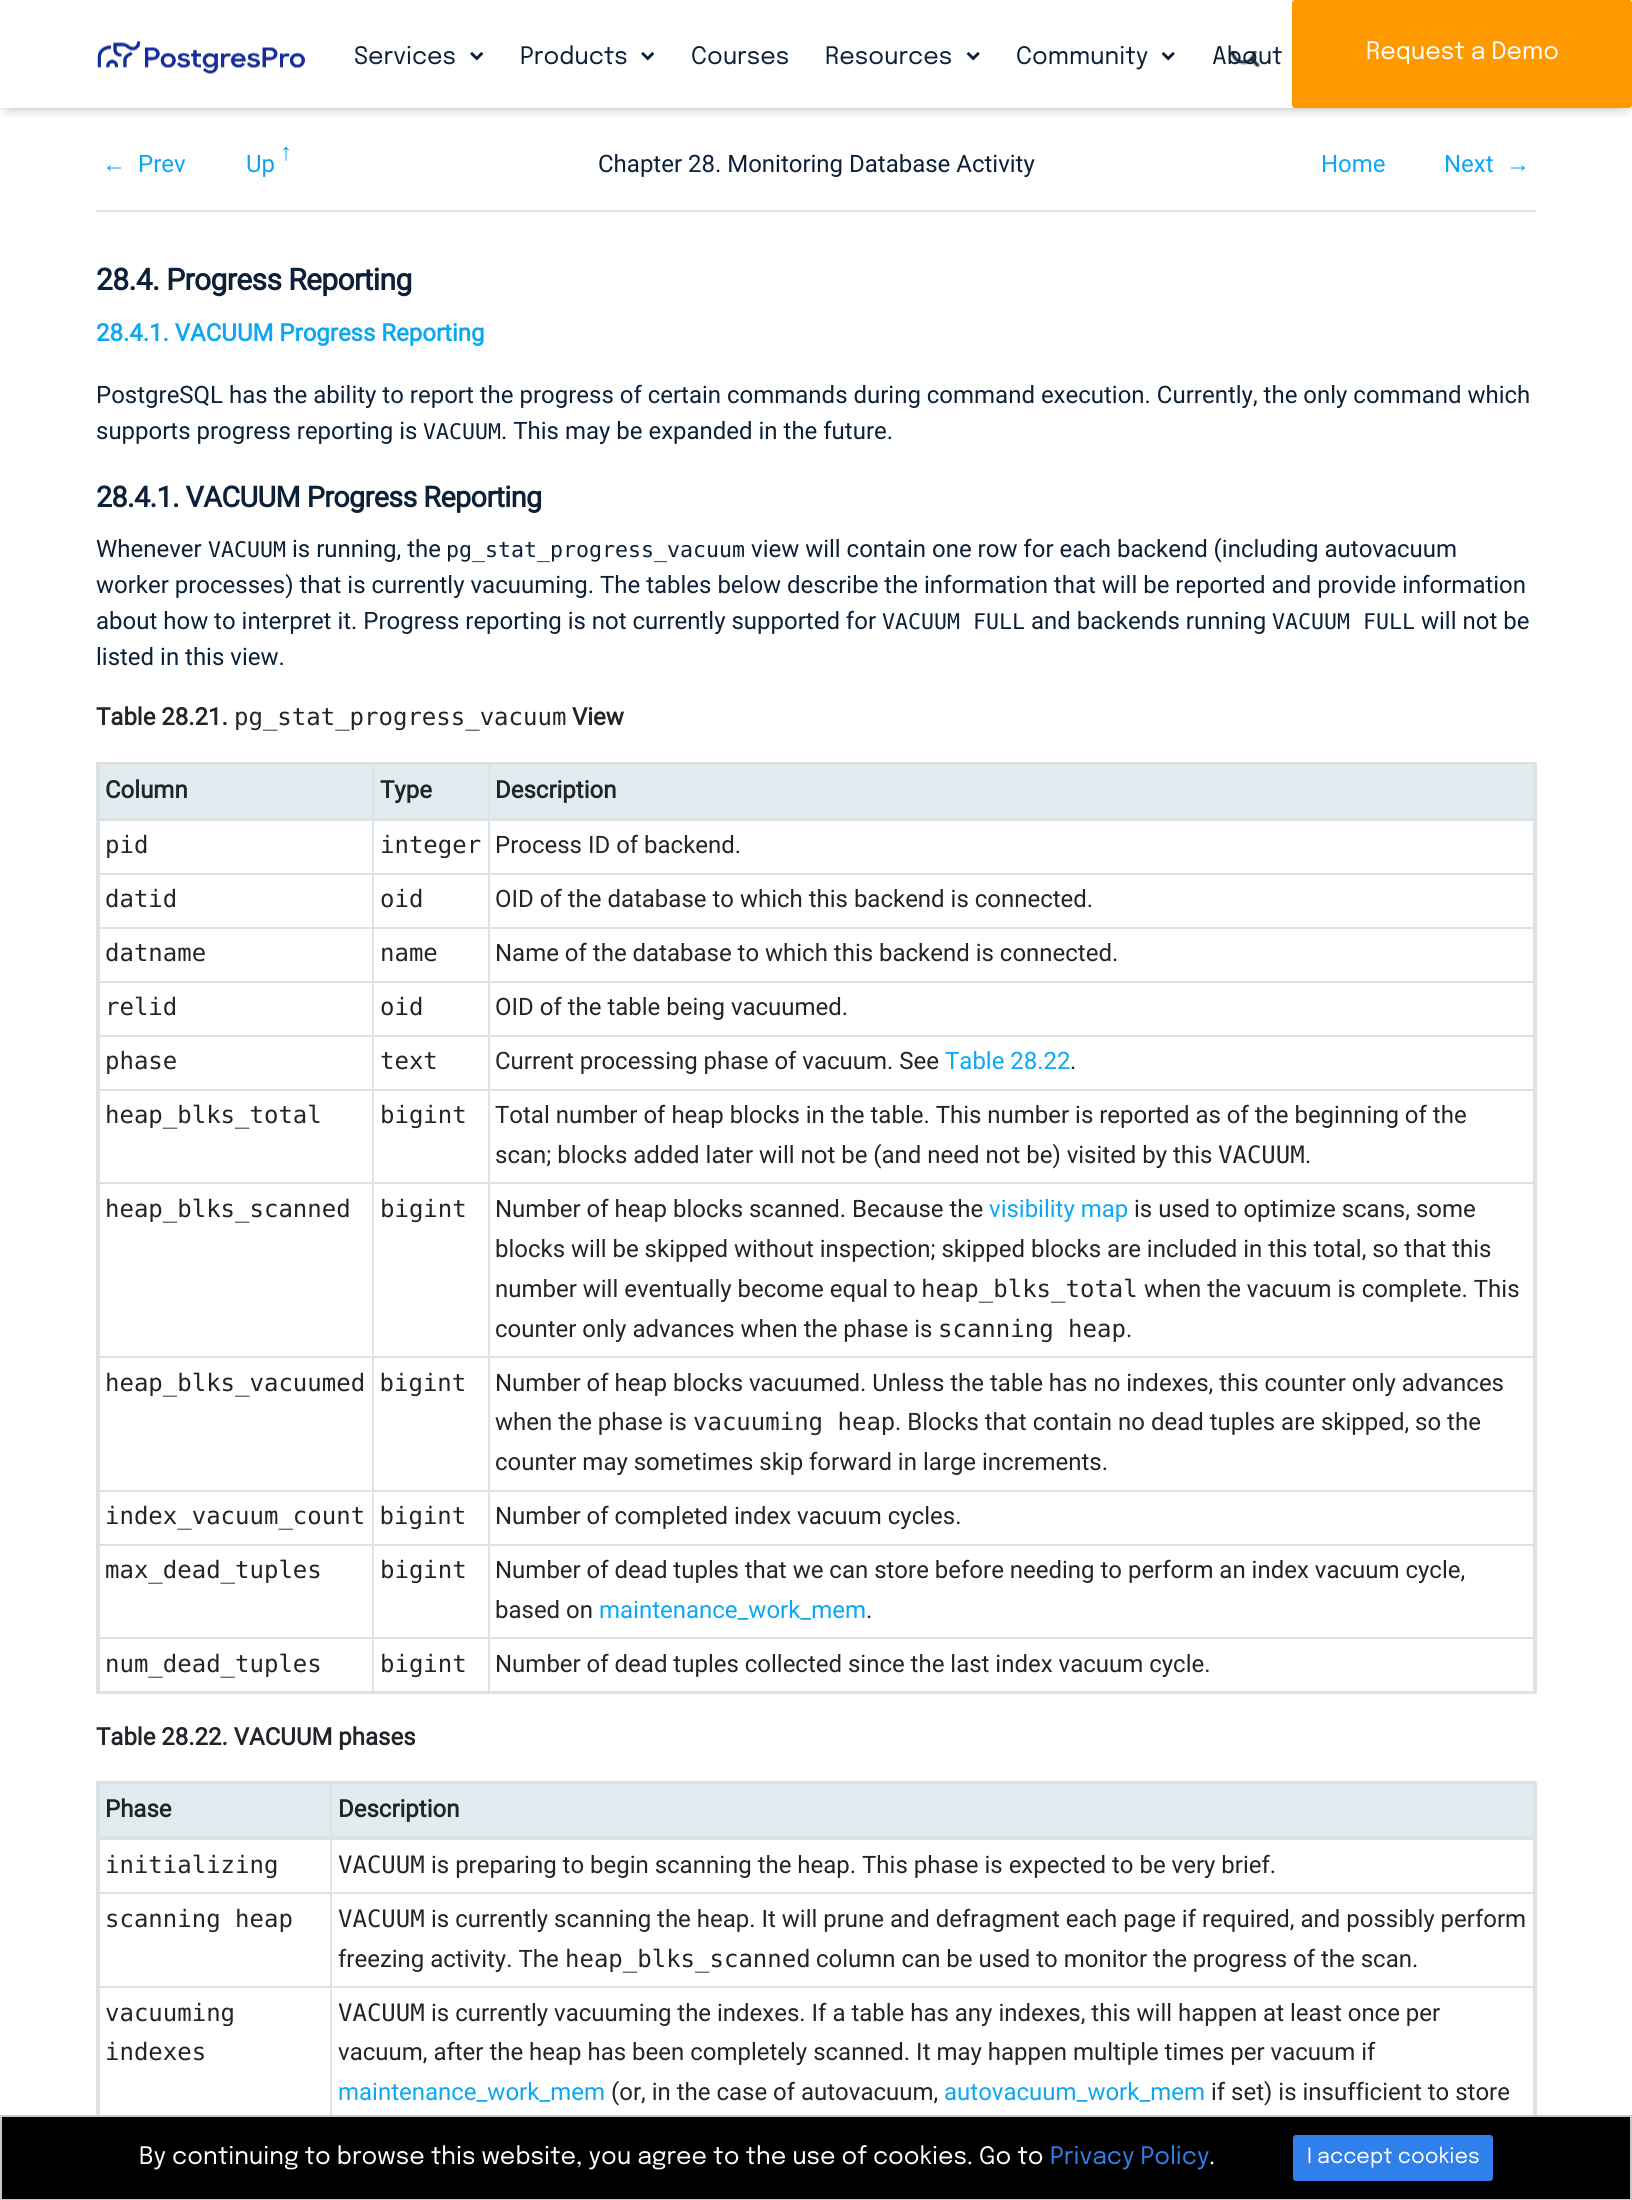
import math
import cairocffi as cairo

surface = cairo.ImageSurface(cairo.FORMAT_RGB24, 1632, 2200)
cr = cairo.Context(surface)
options = cairo.FontOptions()
options.set_hint_metrics(cairo.HINT_METRICS_OFF)
options.set_hint_style(cairo.HINT_STYLE_NONE)
cr.set_font_options(options)
cr.set_miter_limit(4)


def use_color(code):
    cr.set_source_rgb(*(v / 255 for v in bytes.fromhex(code[-6:])))


def spaced_text(x, y, s, letter, word):
    cr.move_to(x, y)
    for ch in s:
        cr.show_text(ch)
        cr.rel_move_to(letter + word * (ch == ' '), 0)


def round_rect(x, y, w, h, r):
    cr.new_sub_path()
    for i, (u, v) in enumerate([(x + w - r, y + h - r), (x + r, y + h - r), (x + r, y + r), (x + w - r, y + r)]):
        cr.arc(u, v, r, i * math.pi / 2, (i + 1) * math.pi / 2)
    cr.close_path()


def shadow(x, y, w, h, r, blur, alpha):
    cr.push_group_with_content(cairo.CONTENT_ALPHA)
    cr.set_operator(cairo.OPERATOR_SOURCE)
    for i in range(15, -16, -2):
        e = blur * i / 6
        if min(w, h) + 2 * e > 0:
            cr.set_source_rgba(0, 0, 0, alpha * math.erfc((i - 1) / 8.5) / 2)
            round_rect(x - e, y - e, w + 2 * e, h + 2 * e, max(0, min(r + e + blur * .6, min(w, h) / 2 + e)))
            cr.fill()
    cr.mask(cr.pop_group())


def picture(path, x, y, w, h):
    cr.save()
    cr.set_source_surface(cairo.ImageSurface.create_from_png(path), x, y)
    cr.rectangle(x, y, w, h)
    cr.fill()
    cr.restore()


use_color("#ffffff")
cr.paint()
cr.save()
cr.rectangle(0, 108, 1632, 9)
cr.clip()
use_color("#000000")
shadow(9, 9, 1614, 90, 0, 9, 1)
cr.restore()
picture("img1.png", 97, 41, 208, 33)
cr.select_font_face("Epilogue")
cr.set_font_size(24)
use_color("#0c2037")
cr.move_to(354, 64)
cr.show_text("Services")
picture("img2.png", 470, 52, 14, 9)
cr.move_to(520, 64)
cr.show_text("Products")
picture("img2.png", 641, 52, 14, 9)
cr.move_to(691, 64)
cr.show_text("Courses")
cr.move_to(825, 64)
cr.show_text("Resources")
picture("img3.png", 966, 52, 14, 9)
cr.move_to(1016, 64)
cr.show_text("Community")
picture("img3.png", 1161, 52, 14, 9)
cr.move_to(1212, 64)
cr.show_text("About")
picture("img4.png", 1230, 51, 31, 17)
use_color("#ff9900")
round_rect(1293, 1, 338, 106, 2)
cr.fill_preserve()
cr.stroke()
use_color("#ffffff")
cr.move_to(1366, 59)
cr.show_text("Request a Demo")
cr.select_font_face("Liberation Sans")
use_color("#0aa7f5")
cr.move_to(102, 172)
cr.show_text("←")
cr.select_font_face("Roboto")
cr.move_to(138, 172)
cr.show_text("Prev")
cr.move_to(246, 172)
cr.show_text("Up")
cr.select_font_face("Liberation Sans")
cr.move_to(280, 160)
cr.show_text("↑")
cr.select_font_face("Roboto")
use_color("#0c2037")
cr.move_to(598, 172)
cr.show_text("Chapter 28. Monitoring Database Activity")
use_color("#0aa7f5")
cr.move_to(1321, 172)
cr.show_text("Home")
cr.move_to(1444, 172)
cr.show_text("Next")
cr.select_font_face("Liberation Sans")
cr.move_to(1506, 172)
cr.show_text("→")
use_color("#e6e6e6")
cr.rectangle(96, 210, 1440, 2)
cr.fill()
cr.select_font_face("Roboto", cairo.FONT_SLANT_NORMAL, cairo.FONT_WEIGHT_BOLD)
cr.set_font_size(30)
use_color("#0c2037")
spaced_text(96, 290, "28.4. Progress Reporting", -0.6, 0)
cr.set_font_size(24)
use_color("#0aa7f5")
cr.move_to(96, 341)
cr.show_text("28.4.1. VACUUM Progress Reporting")
cr.select_font_face("Roboto")
use_color("#0c2037")
cr.move_to(96, 403)
cr.show_text("PostgreSQL has the ability to report the progress of certain commands during command execution. Currently, the only command which")
cr.move_to(96, 439)
cr.show_text("supports progress reporting is")
cr.select_font_face("DejaVu Sans Mono")
cr.set_font_size(21.6)
cr.move_to(423, 439)
cr.show_text("VACUUM")
cr.select_font_face("Roboto")
cr.set_font_size(24)
cr.move_to(501, 439)
cr.show_text(". This may be expanded in the future.")
cr.select_font_face("Roboto", cairo.FONT_SLANT_NORMAL, cairo.FONT_WEIGHT_BOLD)
cr.set_font_size(28.75)
spaced_text(96, 507, "28.4.1. VACUUM Progress Reporting", -0.6, 0)
cr.select_font_face("Roboto")
cr.set_font_size(24)
cr.move_to(96, 557)
cr.show_text("Whenever")
cr.select_font_face("DejaVu Sans Mono")
cr.set_font_size(21.6)
cr.move_to(208, 557)
cr.show_text("VACUUM")
cr.select_font_face("Roboto")
cr.set_font_size(24)
cr.move_to(292, 557)
cr.show_text("is running, the")
cr.select_font_face("DejaVu Sans Mono")
cr.set_font_size(21.6)
cr.move_to(446, 557)
cr.show_text("pg_stat_progress_vacuum")
cr.select_font_face("Roboto")
cr.set_font_size(24)
cr.move_to(751, 557)
cr.show_text("view will contain one row for each backend (including autovacuum")
cr.move_to(96, 593)
cr.show_text("worker processes) that is currently vacuuming. The tables below describe the information that will be reported and provide information")
cr.move_to(96, 629)
cr.show_text("about how to interpret it. Progress reporting is not currently supported for")
cr.select_font_face("DejaVu Sans Mono")
cr.set_font_size(21.6)
cr.move_to(882, 629)
cr.show_text("VACUUM FULL")
cr.select_font_face("Roboto")
cr.set_font_size(24)
cr.move_to(1031, 629)
cr.show_text("and backends running")
cr.select_font_face("DejaVu Sans Mono")
cr.set_font_size(21.6)
cr.move_to(1272, 629)
cr.show_text("VACUUM FULL")
cr.select_font_face("Roboto")
cr.set_font_size(24)
cr.move_to(1421, 629)
cr.show_text("will not be")
cr.move_to(96, 665)
cr.show_text("listed in this view.")
cr.select_font_face("Roboto", cairo.FONT_SLANT_NORMAL, cairo.FONT_WEIGHT_BOLD)
use_color("#212529")
cr.move_to(96, 725)
cr.show_text("Table 28.21.")
cr.select_font_face("DejaVu Sans Mono")
cr.move_to(234, 725)
cr.show_text("pg_stat_progress_vacuum")
cr.select_font_face("Roboto", cairo.FONT_SLANT_NORMAL, cairo.FONT_WEIGHT_BOLD)
cr.move_to(572, 725)
cr.show_text("View")
use_color("#e0ecef")
cr.rectangle(100, 765, 1433, 53)
cr.fill()
use_color("#dee2e6")
cr.rectangle(488, 873, 1048, 2)
cr.fill()
cr.rectangle(488, 927, 1048, 2)
cr.fill()
cr.rectangle(488, 981, 1048, 2)
cr.fill()
cr.rectangle(488, 1035, 1048, 2)
cr.fill()
cr.rectangle(488, 1089, 1048, 2)
cr.fill()
cr.rectangle(488, 1182, 1048, 2)
cr.fill()
cr.rectangle(488, 1356, 1048, 2)
cr.fill()
cr.rectangle(488, 1490, 1048, 2)
cr.fill()
cr.rectangle(488, 1544, 1048, 2)
cr.fill()
cr.rectangle(488, 1637, 1048, 2)
cr.fill()
cr.rectangle(488, 1637, 2, 57)
cr.fill()
cr.rectangle(372, 1637, 117, 2)
cr.fill()
cr.rectangle(488, 1544, 2, 94)
cr.fill()
cr.rectangle(372, 1544, 117, 2)
cr.fill()
cr.rectangle(488, 1490, 2, 55)
cr.fill()
cr.rectangle(372, 1490, 117, 2)
cr.fill()
cr.rectangle(488, 1356, 2, 135)
cr.fill()
cr.rectangle(372, 1356, 117, 2)
cr.fill()
cr.rectangle(488, 1182, 2, 176)
cr.fill()
cr.rectangle(372, 1182, 117, 2)
cr.fill()
cr.rectangle(488, 1089, 2, 95)
cr.fill()
cr.rectangle(372, 1089, 117, 2)
cr.fill()
cr.rectangle(488, 1035, 2, 56)
cr.fill()
cr.rectangle(372, 1035, 117, 2)
cr.fill()
cr.rectangle(488, 981, 2, 56)
cr.fill()
cr.rectangle(372, 981, 117, 2)
cr.fill()
cr.rectangle(488, 927, 2, 56)
cr.fill()
cr.rectangle(372, 927, 117, 2)
cr.fill()
cr.rectangle(488, 873, 2, 56)
cr.fill()
cr.rectangle(372, 873, 117, 2)
cr.fill()
cr.rectangle(372, 1637, 2, 57)
cr.fill()
cr.rectangle(98, 1637, 276, 2)
cr.fill()
cr.rectangle(372, 1544, 2, 94)
cr.fill()
cr.rectangle(98, 1544, 276, 2)
cr.fill()
cr.rectangle(372, 1490, 2, 55)
cr.fill()
cr.rectangle(98, 1490, 276, 2)
cr.fill()
cr.rectangle(372, 1356, 2, 135)
cr.fill()
cr.rectangle(98, 1356, 276, 2)
cr.fill()
cr.rectangle(372, 1182, 2, 176)
cr.fill()
cr.rectangle(98, 1182, 276, 2)
cr.fill()
cr.rectangle(372, 1089, 2, 95)
cr.fill()
cr.rectangle(98, 1089, 276, 2)
cr.fill()
cr.rectangle(372, 1035, 2, 56)
cr.fill()
cr.rectangle(98, 1035, 276, 2)
cr.fill()
cr.rectangle(372, 981, 2, 56)
cr.fill()
cr.rectangle(98, 981, 276, 2)
cr.fill()
cr.rectangle(372, 927, 2, 56)
cr.fill()
cr.rectangle(98, 927, 276, 2)
cr.fill()
cr.rectangle(372, 873, 2, 56)
cr.fill()
cr.rectangle(98, 873, 276, 2)
cr.fill()
cr.rectangle(372, 762, 2, 113)
cr.fill()
cr.rectangle(488, 762, 2, 113)
cr.fill()
cr.rectangle(99, 1637, 1, 57)
cr.fill()
cr.rectangle(99, 1544, 1, 94)
cr.fill()
cr.rectangle(99, 1490, 1, 55)
cr.fill()
cr.rectangle(99, 1356, 1, 135)
cr.fill()
cr.rectangle(99, 1182, 1, 176)
cr.fill()
cr.rectangle(99, 1089, 1, 95)
cr.fill()
cr.rectangle(99, 1035, 1, 56)
cr.fill()
cr.rectangle(99, 981, 1, 56)
cr.fill()
cr.rectangle(99, 927, 1, 56)
cr.fill()
cr.rectangle(99, 762, 1, 167)
cr.fill()
cr.rectangle(96, 762, 1440, 3)
cr.fill()
cr.rectangle(1533, 762, 3, 932)
cr.fill()
cr.rectangle(96, 1691, 1440, 3)
cr.fill()
cr.rectangle(96, 762, 3, 932)
cr.fill()
use_color("#212529")
cr.move_to(105, 798)
cr.show_text("Column")
cr.move_to(380, 798)
cr.show_text("Type")
use_color("#dee2e6")
cr.rectangle(96, 818, 1440, 3)
cr.fill()
use_color("#212529")
cr.move_to(495, 798)
cr.show_text("Description")
cr.select_font_face("DejaVu Sans Mono")
cr.move_to(105, 853)
cr.show_text("pid")
cr.move_to(380, 853)
cr.show_text("integer")
cr.select_font_face("Roboto")
cr.move_to(495, 853)
cr.show_text("Process ID of backend.")
cr.select_font_face("DejaVu Sans Mono")
cr.move_to(105, 907)
cr.show_text("datid")
cr.move_to(380, 907)
cr.show_text("oid")
cr.select_font_face("Roboto")
cr.move_to(495, 907)
cr.show_text("OID of the database to which this backend is connected.")
cr.select_font_face("DejaVu Sans Mono")
cr.move_to(105, 961)
cr.show_text("datname")
cr.move_to(380, 961)
cr.show_text("name")
cr.select_font_face("Roboto")
cr.move_to(495, 961)
cr.show_text("Name of the database to which this backend is connected.")
cr.select_font_face("DejaVu Sans Mono")
cr.move_to(105, 1015)
cr.show_text("relid")
cr.move_to(380, 1015)
cr.show_text("oid")
cr.select_font_face("Roboto")
cr.move_to(495, 1015)
cr.show_text("OID of the table being vacuumed.")
cr.select_font_face("DejaVu Sans Mono")
cr.move_to(105, 1069)
cr.show_text("phase")
cr.move_to(380, 1069)
cr.show_text("text")
cr.select_font_face("Roboto")
cr.move_to(495, 1069)
cr.show_text("Current processing phase of vacuum. See")
use_color("#0aa7f5")
cr.move_to(945, 1069)
cr.show_text("Table 28.22")
use_color("#212529")
cr.move_to(1070, 1069)
cr.show_text(".")
cr.select_font_face("DejaVu Sans Mono")
cr.move_to(105, 1123)
cr.show_text("heap_blks_total")
cr.move_to(380, 1123)
cr.show_text("bigint")
cr.select_font_face("Roboto")
cr.move_to(495, 1123)
cr.show_text("Total number of heap blocks in the table. This number is reported as of the beginning of the")
cr.move_to(495, 1163)
cr.show_text("scan; blocks added later will not be (and need not be) visited by this")
cr.select_font_face("DejaVu Sans Mono")
cr.move_to(1218, 1163)
cr.show_text("VACUUM")
cr.select_font_face("Roboto")
cr.move_to(1305, 1163)
cr.show_text(".")
cr.select_font_face("DejaVu Sans Mono")
cr.move_to(105, 1217)
cr.show_text("heap_blks_scanned")
cr.move_to(380, 1217)
cr.show_text("bigint")
cr.select_font_face("Roboto")
cr.move_to(495, 1217)
cr.show_text("Number of heap blocks scanned. Because the")
use_color("#0aa7f5")
cr.move_to(989, 1217)
cr.show_text("visibility map")
use_color("#212529")
cr.move_to(1134, 1217)
cr.show_text("is used to optimize scans, some")
cr.move_to(495, 1257)
cr.show_text("blocks will be skipped without inspection; skipped blocks are included in this total, so that this")
cr.move_to(495, 1297)
cr.show_text("number will eventually become equal to")
cr.select_font_face("DejaVu Sans Mono")
cr.move_to(921, 1297)
cr.show_text("heap_blks_total")
cr.select_font_face("Roboto")
cr.move_to(1144, 1297)
cr.show_text("when the vacuum is complete. This")
cr.move_to(495, 1337)
cr.show_text("counter only advances when the phase is")
cr.select_font_face("DejaVu Sans Mono")
cr.move_to(938, 1337)
cr.show_text("scanning heap")
cr.select_font_face("Roboto")
cr.move_to(1126, 1337)
cr.show_text(".")
cr.select_font_face("DejaVu Sans Mono")
cr.move_to(105, 1391)
cr.show_text("heap_blks_vacuumed bigint")
cr.select_font_face("Roboto")
cr.move_to(495, 1391)
cr.show_text("Number of heap blocks vacuumed. Unless the table has no indexes, this counter only advances")
cr.move_to(495, 1430)
cr.show_text("when the phase is")
cr.select_font_face("DejaVu Sans Mono")
cr.move_to(693, 1430)
cr.show_text("vacuuming heap")
cr.select_font_face("Roboto")
cr.move_to(895, 1430)
cr.show_text(". Blocks that contain no dead tuples are skipped, so the")
cr.move_to(495, 1470)
cr.show_text("counter may sometimes skip forward in large increments.")
cr.select_font_face("DejaVu Sans Mono")
cr.move_to(105, 1524)
cr.show_text("index_vacuum_count bigint")
cr.select_font_face("Roboto")
cr.move_to(495, 1524)
cr.show_text("Number of completed index vacuum cycles.")
cr.select_font_face("DejaVu Sans Mono")
cr.move_to(105, 1578)
cr.show_text("max_dead_tuples")
cr.move_to(380, 1578)
cr.show_text("bigint")
cr.select_font_face("Roboto")
cr.move_to(495, 1578)
cr.show_text("Number of dead tuples that we can store before needing to perform an index vacuum cycle,")
cr.move_to(495, 1618)
cr.show_text("based on")
use_color("#0aa7f5")
cr.move_to(599, 1618)
cr.show_text("maintenance_work_mem")
use_color("#212529")
cr.move_to(866, 1618)
cr.show_text(".")
cr.select_font_face("DejaVu Sans Mono")
cr.move_to(105, 1672)
cr.show_text("num_dead_tuples")
cr.move_to(380, 1672)
cr.show_text("bigint")
use_color("#dee2e6")
cr.rectangle(1536, 762, 1, 932)
cr.fill()
cr.select_font_face("Roboto")
use_color("#212529")
cr.move_to(495, 1672)
cr.show_text("Number of dead tuples collected since the last index vacuum cycle.")
cr.select_font_face("Roboto", cairo.FONT_SLANT_NORMAL, cairo.FONT_WEIGHT_BOLD)
cr.move_to(96, 1745)
cr.show_text("Table 28.22. VACUUM phases")
use_color("#e0ecef")
cr.rectangle(100, 1784, 1433, 52)
cr.fill()
use_color("#dee2e6")
cr.rectangle(330, 1839, 1206, 1)
cr.fill()
cr.rectangle(330, 1892, 1206, 2)
cr.fill()
cr.rectangle(330, 1986, 1206, 2)
cr.fill()
cr.rectangle(330, 1986, 2, 129)
cr.fill()
cr.rectangle(98, 1986, 234, 2)
cr.fill()
cr.rectangle(330, 1892, 2, 96)
cr.fill()
cr.rectangle(98, 1892, 234, 2)
cr.fill()
cr.rectangle(330, 1782, 2, 111)
cr.fill()
cr.rectangle(98, 1839, 234, 1)
cr.fill()
cr.rectangle(99, 1986, 1, 129)
cr.fill()
cr.rectangle(99, 1892, 1, 96)
cr.fill()
cr.rectangle(99, 1782, 1, 111)
cr.fill()
cr.rectangle(96, 1781, 1440, 3)
cr.fill()
cr.rectangle(1533, 1781, 3, 334)
cr.fill()
cr.rectangle(96, 1781, 3, 334)
cr.fill()
use_color("#212529")
cr.move_to(105, 1817)
cr.show_text("Phase")
use_color("#dee2e6")
cr.rectangle(96, 1836, 1440, 3)
cr.fill()
use_color("#212529")
cr.move_to(338, 1817)
cr.show_text("Description")
cr.select_font_face("DejaVu Sans Mono")
cr.move_to(105, 1873)
cr.show_text("initializing")
cr.move_to(338, 1873)
cr.show_text("VACUUM")
cr.select_font_face("Roboto")
cr.move_to(431, 1873)
cr.show_text("is preparing to begin scanning the heap. This phase is expected to be very brief.")
cr.select_font_face("DejaVu Sans Mono")
cr.move_to(105, 1927)
cr.show_text("scanning heap")
cr.move_to(338, 1927)
cr.show_text("VACUUM")
cr.select_font_face("Roboto")
cr.move_to(431, 1927)
cr.show_text("is currently scanning the heap. It will prune and defragment each page if required, and possibly perform")
cr.move_to(338, 1967)
cr.show_text("freezing activity. The")
cr.select_font_face("DejaVu Sans Mono")
cr.move_to(565, 1967)
cr.show_text("heap_blks_scanned")
cr.select_font_face("Roboto")
cr.move_to(816, 1967)
cr.show_text("column can be used to monitor the progress of the scan.")
cr.select_font_face("DejaVu Sans Mono")
cr.move_to(105, 2021)
cr.show_text("vacuuming")
cr.move_to(105, 2060)
cr.show_text("indexes")
use_color("#dee2e6")
cr.rectangle(1536, 1782, 1, 333)
cr.fill()
use_color("#212529")
cr.move_to(338, 2021)
cr.show_text("VACUUM")
cr.select_font_face("Roboto")
cr.move_to(431, 2021)
cr.show_text("is currently vacuuming the indexes. If a table has any indexes, this will happen at least once per")
cr.move_to(338, 2060)
cr.show_text("vacuum, after the heap has been completely scanned. It may happen multiple times per vacuum if")
use_color("#0aa7f5")
cr.move_to(338, 2100)
cr.show_text("maintenance_work_mem")
use_color("#212529")
cr.move_to(611, 2100)
cr.show_text("(or, in the case of autovacuum,")
use_color("#0aa7f5")
cr.move_to(944, 2100)
cr.show_text("autovacuum_work_mem")
use_color("#212529")
cr.move_to(1211, 2100)
cr.show_text("if set) is insufficient to store")
use_color("#000000")
cr.rectangle(1, 2116, 1630, 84)
cr.fill_preserve()
use_color("#c6c8ca")
cr.stroke()
cr.select_font_face("Epilogue")
use_color("#ffffff")
cr.move_to(139, 2164)
cr.show_text("By continuing to browse this website, you agree to the use of cookies. Go to")
use_color("#2f80eb")
cr.move_to(1050, 2164)
cr.show_text("Privacy Policy")
use_color("#ffffff")
cr.move_to(1209, 2164)
cr.show_text(".")
use_color("#2f80eb")
round_rect(1294, 2136, 198, 44, 2)
cr.fill_preserve()
cr.stroke()
cr.set_font_size(21)
use_color("#ffffff")
cr.move_to(1307, 2163)
cr.show_text("I accept cookies")
surface.write_to_png("result.png")
